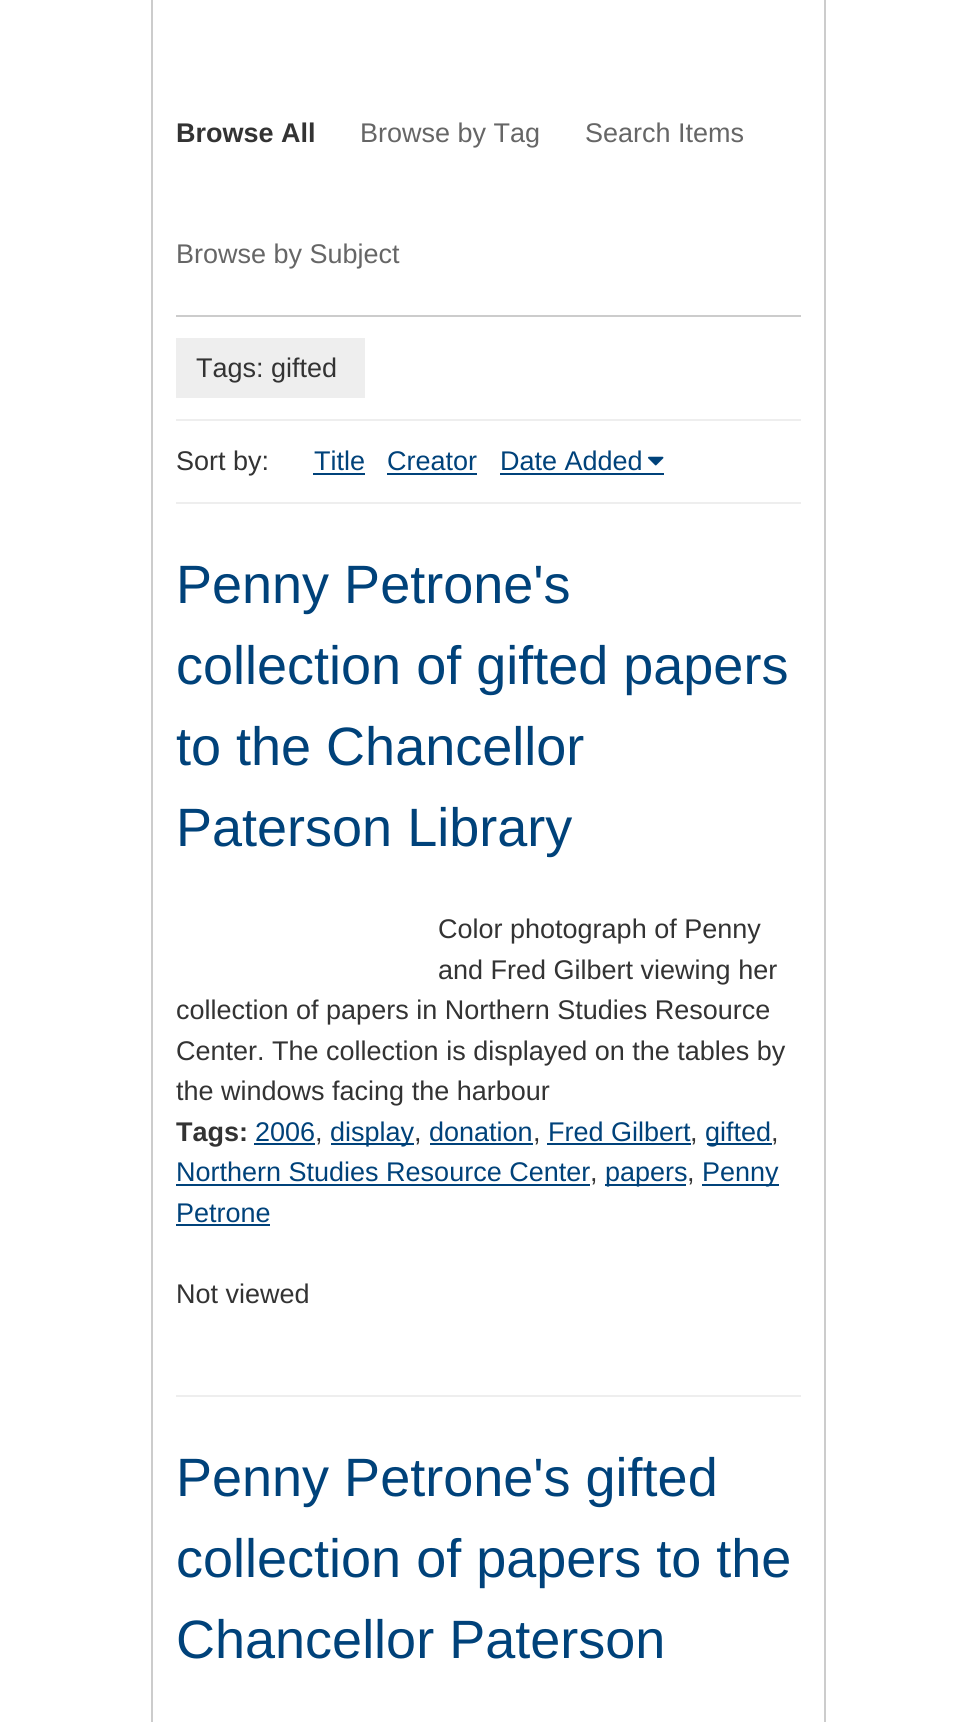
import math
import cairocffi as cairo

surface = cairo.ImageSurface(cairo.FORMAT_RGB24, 976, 1722)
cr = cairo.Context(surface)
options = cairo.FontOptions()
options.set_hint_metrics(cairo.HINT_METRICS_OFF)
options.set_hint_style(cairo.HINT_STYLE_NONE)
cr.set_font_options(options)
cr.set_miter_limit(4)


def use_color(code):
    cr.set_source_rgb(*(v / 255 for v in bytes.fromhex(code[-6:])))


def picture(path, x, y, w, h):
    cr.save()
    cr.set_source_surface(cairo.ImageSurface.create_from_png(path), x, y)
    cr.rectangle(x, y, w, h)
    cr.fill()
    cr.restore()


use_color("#ffffff")
cr.paint()
cr.rectangle(152, -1, 673, 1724)
use_color("#cccccc")
cr.stroke()
cr.rectangle(176, 315, 625, 2)
cr.fill()
cr.select_font_face("Liberation Sans", cairo.FONT_SLANT_NORMAL, cairo.FONT_WEIGHT_BOLD)
cr.set_font_size(27)
use_color("#333333")
cr.move_to(176, 142)
cr.show_text("Browse All")
cr.select_font_face("Liberation Sans")
use_color("#666666")
cr.move_to(360, 142)
cr.show_text("Browse by Tag")
cr.move_to(585, 142)
cr.show_text("Search Items")
cr.move_to(176, 263)
cr.show_text("Browse by Subject")
use_color("#eeeeee")
cr.rectangle(176, 419, 625, 2)
cr.fill()
cr.rectangle(176, 338, 189, 60)
cr.fill()
use_color("#333333")
cr.move_to(196, 377)
cr.show_text("Tags: gifted")
cr.move_to(176, 470)
cr.show_text("Sort by:")
use_color("#00427a")
cr.move_to(314, 470)
cr.show_text("Title")
cr.rectangle(313, 473, 52, 2)
cr.fill()
cr.move_to(387, 470)
cr.show_text("Creator")
cr.rectangle(387, 473, 90, 2)
cr.fill()
cr.move_to(500, 470)
cr.show_text("Date Added")
cr.rectangle(500, 473, 164, 2)
cr.fill()
picture("img1.png", 648, 456, 16, 10)
use_color("#eeeeee")
cr.rectangle(176, 502, 625, 2)
cr.fill()
cr.rectangle(176, 1395, 625, 2)
cr.fill()
cr.set_font_size(54)
use_color("#00427a")
cr.move_to(176, 603)
cr.show_text("Penny Petrone's")
cr.move_to(176, 684)
cr.show_text("collection of gifted papers")
cr.move_to(176, 765)
cr.show_text("to the Chancellor")
cr.move_to(176, 846)
cr.show_text("Paterson Library")
cr.set_font_size(27)
use_color("#333333")
cr.move_to(438, 938)
cr.show_text("Color photograph of Penny")
cr.move_to(438, 979)
cr.show_text("and Fred Gilbert viewing her")
cr.move_to(176, 1019)
cr.show_text("collection of papers in Northern Studies Resource")
cr.move_to(176, 1060)
cr.show_text("Center. The collection is displayed on the tables by")
cr.move_to(176, 1100)
cr.show_text("the windows facing the harbour")
cr.save()
cr.rectangle(176, 504, 625, 891)
cr.clip()
cr.select_font_face("Liberation Sans", cairo.FONT_SLANT_NORMAL, cairo.FONT_WEIGHT_BOLD)
cr.move_to(176, 1141)
cr.show_text("Tags:")
cr.restore()
use_color("#00427a")
cr.move_to(255, 1141)
cr.show_text("2006")
cr.rectangle(254, 1143, 61, 2)
cr.fill()
use_color("#333333")
cr.move_to(315, 1141)
cr.show_text(",")
use_color("#00427a")
cr.rectangle(331, 1143, 83, 2)
cr.fill()
cr.move_to(330, 1141)
cr.show_text("display")
use_color("#333333")
cr.move_to(414, 1141)
cr.show_text(",")
use_color("#00427a")
cr.move_to(429, 1141)
cr.show_text("donation")
cr.rectangle(430, 1143, 103, 2)
cr.fill()
use_color("#333333")
cr.move_to(533, 1141)
cr.show_text(",")
use_color("#00427a")
cr.move_to(548, 1141)
cr.show_text("Fred Gilbert")
cr.rectangle(547, 1143, 144, 2)
cr.fill()
use_color("#333333")
cr.move_to(690, 1141)
cr.show_text(",")
use_color("#00427a")
cr.rectangle(707, 1143, 65, 2)
cr.fill()
cr.move_to(705, 1141)
cr.show_text("gifted")
use_color("#333333")
cr.move_to(771, 1141)
cr.show_text(",")
use_color("#00427a")
cr.move_to(176, 1181)
cr.show_text("Northern Studies Resource Center")
cr.rectangle(176, 1184, 414, 2)
cr.fill()
use_color("#333333")
cr.move_to(590, 1181)
cr.show_text(",")
use_color("#00427a")
cr.rectangle(605, 1184, 81, 2)
cr.fill()
cr.move_to(605, 1181)
cr.show_text("papers")
use_color("#333333")
cr.move_to(687, 1181)
cr.show_text(",")
use_color("#00427a")
cr.rectangle(702, 1184, 77, 2)
cr.fill()
cr.move_to(702, 1181)
cr.show_text("Penny")
cr.move_to(176, 1222)
cr.show_text("Petrone")
cr.rectangle(176, 1224, 94, 2)
cr.fill()
use_color("#333333")
cr.move_to(176, 1303)
cr.show_text("Not viewed")
cr.set_font_size(54)
use_color("#00427a")
cr.move_to(176, 1496)
cr.show_text("Penny Petrone's gifted")
cr.move_to(176, 1577)
cr.show_text("collection of papers to the")
cr.move_to(176, 1658)
cr.show_text("Chancellor Paterson")
surface.write_to_png("result.png")
